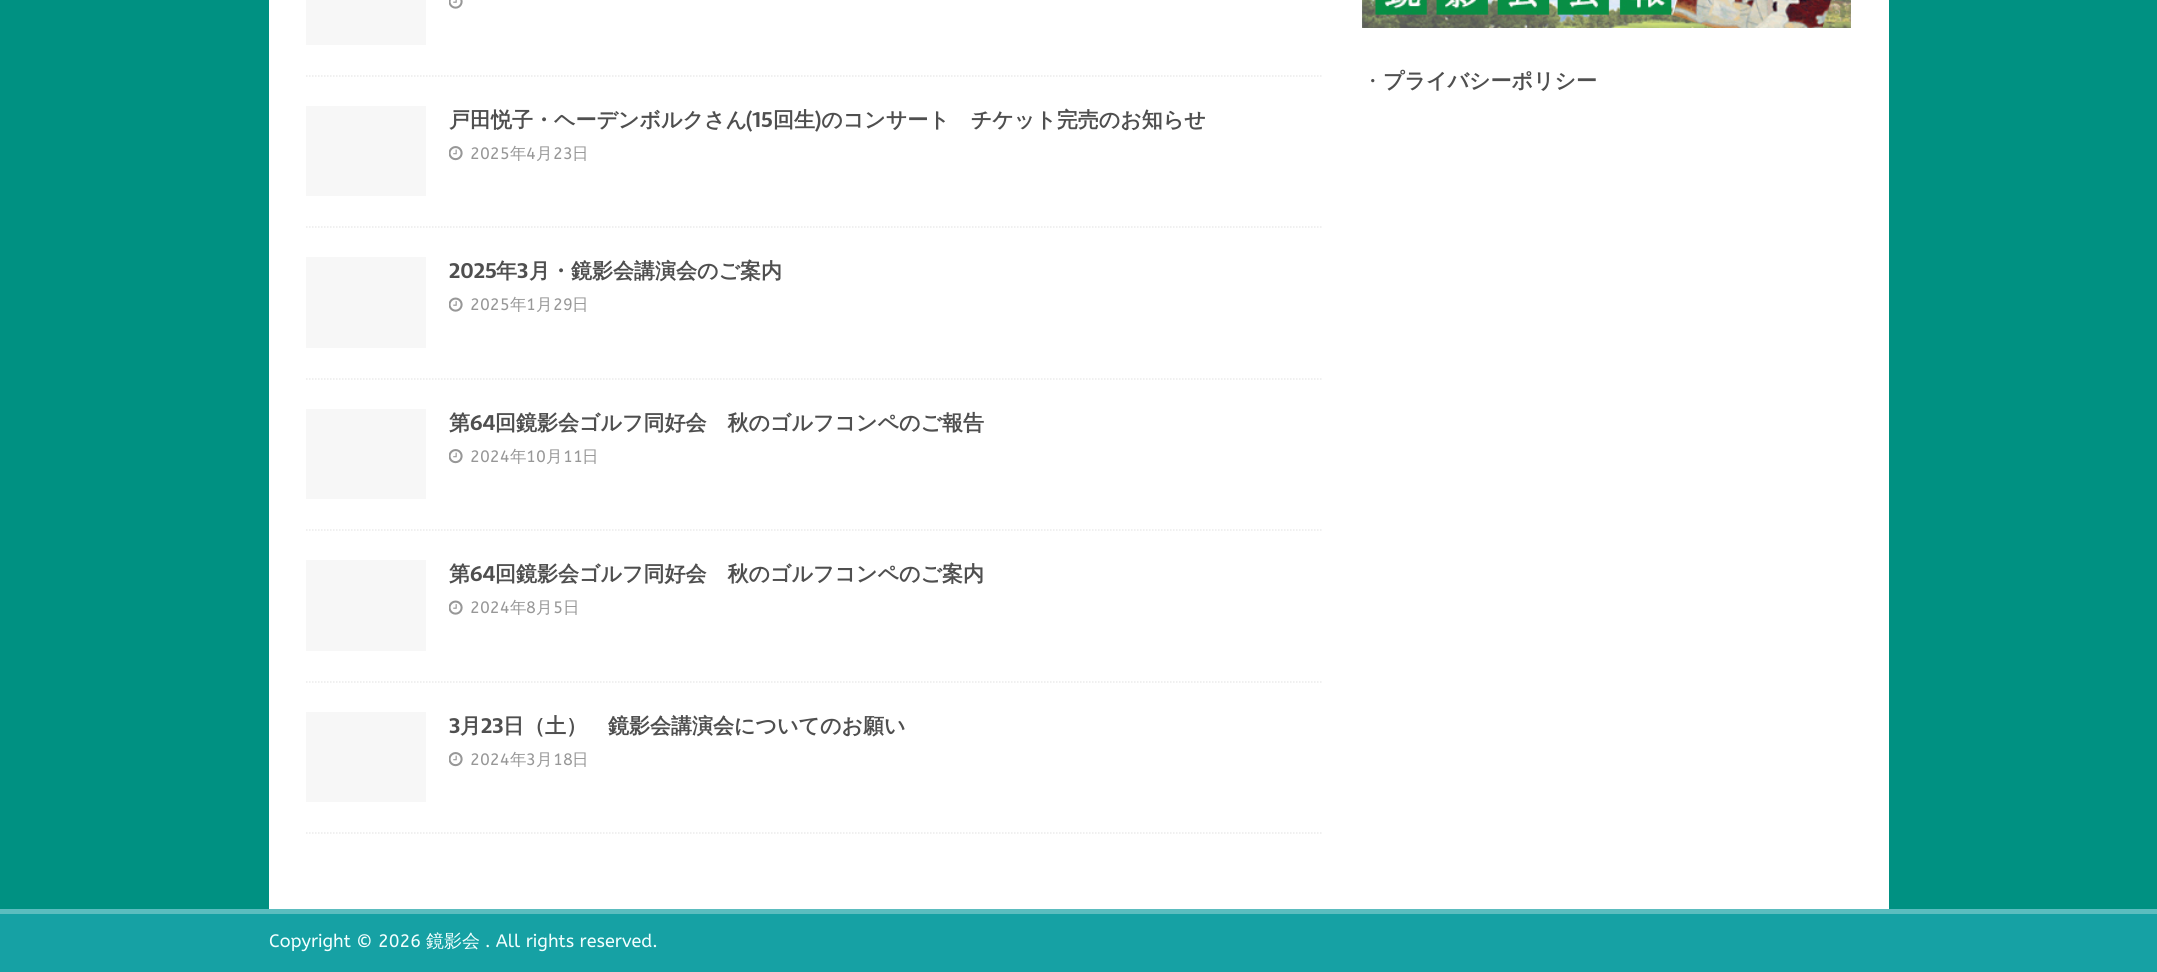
import math
import cairocffi as cairo

surface = cairo.ImageSurface(cairo.FORMAT_RGB24, 2157, 972)
cr = cairo.Context(surface)
options = cairo.FontOptions()
options.set_hint_metrics(cairo.HINT_METRICS_OFF)
options.set_hint_style(cairo.HINT_STYLE_NONE)
cr.set_font_options(options)
cr.set_miter_limit(4)


def use_color(code):
    cr.set_source_rgb(*(v / 255 for v in bytes.fromhex(code[-6:])))


def picture(path, x, y, w, h):
    cr.save()
    cr.set_source_surface(cairo.ImageSurface.create_from_png(path), x, y)
    cr.rectangle(x, y, w, h)
    cr.fill()
    cr.restore()


use_color("#009182")
cr.paint()
use_color("#ffffff")
cr.rectangle(269, 0, 1620, 909)
cr.fill()
picture("img1.png", 1362, 0, 489, 28)
cr.select_font_face("WenQuanYi Zen Hei Medium")
cr.set_font_size(21)
use_color("#4f4f4f")
cr.move_to(1362, 88)
cr.show_text("・")
cr.select_font_face("WenQuanYi Zen Hei", cairo.FONT_SLANT_NORMAL, cairo.FONT_WEIGHT_BOLD)
cr.move_to(1383, 88)
cr.show_text("プライバシーポリシー")
cr.new_path()
cr.move_to(306, 76)
cr.line_to(1323, 76)
use_color("#ebebeb")
cr.set_line_width(1.5)
cr.set_dash([1.5, 1.5])
cr.stroke()
use_color("#f7f7f7")
cr.rectangle(306, 0, 120, 45)
cr.fill()
picture("img2.png", 449, 0, 14, 9)
cr.new_path()
cr.move_to(306, 227)
cr.line_to(1323, 227)
use_color("#ebebeb")
cr.stroke()
use_color("#f7f7f7")
cr.rectangle(306, 106, 120, 90)
cr.fill()
use_color("#4f4f4f")
cr.move_to(449, 127)
cr.show_text("戸田悦子・ヘーデンボルクさん")
cr.select_font_face("Sarala", cairo.FONT_SLANT_NORMAL, cairo.FONT_WEIGHT_BOLD)
cr.move_to(746, 127)
cr.show_text("(15")
cr.select_font_face("WenQuanYi Zen Hei", cairo.FONT_SLANT_NORMAL, cairo.FONT_WEIGHT_BOLD)
cr.move_to(773, 127)
cr.show_text("回生 のコンサート　チケット完売のお知らせ")
cr.select_font_face("Sarala", cairo.FONT_SLANT_NORMAL, cairo.FONT_WEIGHT_BOLD)
cr.move_to(815, 127)
cr.show_text(")")
picture("img3.png", 449, 146, 14, 15)
cr.select_font_face("ABeeZee")
cr.set_font_size(16.5)
use_color("#979797")
cr.move_to(470, 159)
cr.show_text("2025")
cr.select_font_face("WenQuanYi Zen Hei Medium")
cr.move_to(510, 159)
cr.show_text("年")
cr.select_font_face("ABeeZee")
cr.move_to(526, 159)
cr.show_text("4")
cr.select_font_face("WenQuanYi Zen Hei Medium")
cr.move_to(536, 159)
cr.show_text("月")
cr.select_font_face("ABeeZee")
cr.move_to(553, 159)
cr.show_text("23")
cr.select_font_face("WenQuanYi Zen Hei Medium")
cr.move_to(572, 159)
cr.show_text("日")
cr.new_path()
cr.move_to(306, 379)
cr.line_to(1323, 379)
use_color("#ebebeb")
cr.stroke()
use_color("#f7f7f7")
cr.rectangle(306, 257, 120, 91)
cr.fill()
cr.select_font_face("Sarala", cairo.FONT_SLANT_NORMAL, cairo.FONT_WEIGHT_BOLD)
cr.set_font_size(21)
use_color("#4f4f4f")
cr.move_to(449, 278)
cr.show_text("2025")
cr.select_font_face("WenQuanYi Zen Hei", cairo.FONT_SLANT_NORMAL, cairo.FONT_WEIGHT_BOLD)
cr.move_to(496, 278)
cr.show_text("年")
cr.select_font_face("Sarala", cairo.FONT_SLANT_NORMAL, cairo.FONT_WEIGHT_BOLD)
cr.move_to(517, 278)
cr.show_text("3")
cr.select_font_face("WenQuanYi Zen Hei", cairo.FONT_SLANT_NORMAL, cairo.FONT_WEIGHT_BOLD)
cr.move_to(529, 278)
cr.show_text("月・鏡影会講演会のご案内")
picture("img4.png", 449, 297, 14, 15)
cr.select_font_face("ABeeZee")
cr.set_font_size(16.5)
use_color("#979797")
cr.move_to(470, 310)
cr.show_text("2025")
cr.select_font_face("WenQuanYi Zen Hei Medium")
cr.move_to(510, 310)
cr.show_text("年")
cr.select_font_face("ABeeZee")
cr.move_to(526, 310)
cr.show_text("1")
cr.select_font_face("WenQuanYi Zen Hei Medium")
cr.move_to(536, 310)
cr.show_text("月")
cr.select_font_face("ABeeZee")
cr.move_to(553, 310)
cr.show_text("29")
cr.select_font_face("WenQuanYi Zen Hei Medium")
cr.move_to(572, 310)
cr.show_text("日")
cr.new_path()
cr.move_to(306, 530)
cr.line_to(1323, 530)
use_color("#ebebeb")
cr.stroke()
use_color("#f7f7f7")
cr.rectangle(306, 409, 120, 90)
cr.fill()
cr.select_font_face("WenQuanYi Zen Hei", cairo.FONT_SLANT_NORMAL, cairo.FONT_WEIGHT_BOLD)
cr.set_font_size(21)
use_color("#4f4f4f")
cr.move_to(449, 430)
cr.show_text("第")
cr.select_font_face("Sarala", cairo.FONT_SLANT_NORMAL, cairo.FONT_WEIGHT_BOLD)
cr.move_to(470, 430)
cr.show_text("64")
cr.select_font_face("WenQuanYi Zen Hei", cairo.FONT_SLANT_NORMAL, cairo.FONT_WEIGHT_BOLD)
cr.move_to(495, 430)
cr.show_text("回鏡影会ゴルフ同好会　秋のゴルフコンペのご報告")
picture("img3.png", 449, 449, 14, 15)
cr.select_font_face("ABeeZee")
cr.set_font_size(16.5)
use_color("#979797")
cr.move_to(470, 462)
cr.show_text("2024")
cr.select_font_face("WenQuanYi Zen Hei Medium")
cr.move_to(510, 462)
cr.show_text("年")
cr.select_font_face("ABeeZee")
cr.move_to(526, 462)
cr.show_text("10")
cr.select_font_face("WenQuanYi Zen Hei Medium")
cr.move_to(546, 462)
cr.show_text("月")
cr.select_font_face("ABeeZee")
cr.move_to(563, 462)
cr.show_text("11")
cr.select_font_face("WenQuanYi Zen Hei Medium")
cr.move_to(582, 462)
cr.show_text("日")
cr.new_path()
cr.move_to(306, 682)
cr.line_to(1323, 682)
use_color("#ebebeb")
cr.stroke()
use_color("#f7f7f7")
cr.rectangle(306, 560, 120, 91)
cr.fill()
cr.select_font_face("WenQuanYi Zen Hei", cairo.FONT_SLANT_NORMAL, cairo.FONT_WEIGHT_BOLD)
cr.set_font_size(21)
use_color("#4f4f4f")
cr.move_to(449, 581)
cr.show_text("第")
cr.select_font_face("Sarala", cairo.FONT_SLANT_NORMAL, cairo.FONT_WEIGHT_BOLD)
cr.move_to(470, 581)
cr.show_text("64")
cr.select_font_face("WenQuanYi Zen Hei", cairo.FONT_SLANT_NORMAL, cairo.FONT_WEIGHT_BOLD)
cr.move_to(495, 581)
cr.show_text("回鏡影会ゴルフ同好会　秋のゴルフコンペのご案内")
picture("img4.png", 449, 600, 14, 15)
cr.select_font_face("ABeeZee")
cr.set_font_size(16.5)
use_color("#979797")
cr.move_to(470, 613)
cr.show_text("2024")
cr.select_font_face("WenQuanYi Zen Hei Medium")
cr.move_to(510, 613)
cr.show_text("年")
cr.select_font_face("ABeeZee")
cr.move_to(526, 613)
cr.show_text("8")
cr.select_font_face("WenQuanYi Zen Hei Medium")
cr.move_to(536, 613)
cr.show_text("月")
cr.select_font_face("ABeeZee")
cr.move_to(553, 613)
cr.show_text("5")
cr.select_font_face("WenQuanYi Zen Hei Medium")
cr.move_to(563, 613)
cr.show_text("日")
cr.new_path()
cr.move_to(306, 833)
cr.line_to(1323, 833)
use_color("#ebebeb")
cr.stroke()
use_color("#f7f7f7")
cr.rectangle(306, 712, 120, 90)
cr.fill()
cr.select_font_face("Sarala", cairo.FONT_SLANT_NORMAL, cairo.FONT_WEIGHT_BOLD)
cr.set_font_size(21)
use_color("#4f4f4f")
cr.move_to(449, 733)
cr.show_text("3")
cr.select_font_face("WenQuanYi Zen Hei", cairo.FONT_SLANT_NORMAL, cairo.FONT_WEIGHT_BOLD)
cr.move_to(460, 733)
cr.show_text("月")
cr.select_font_face("Sarala", cairo.FONT_SLANT_NORMAL, cairo.FONT_WEIGHT_BOLD)
cr.move_to(481, 733)
cr.show_text("23")
cr.select_font_face("WenQuanYi Zen Hei", cairo.FONT_SLANT_NORMAL, cairo.FONT_WEIGHT_BOLD)
cr.move_to(503, 733)
cr.show_text("日（土）　鏡影会講演会についてのお願い")
picture("img3.png", 449, 752, 14, 15)
cr.select_font_face("ABeeZee")
cr.set_font_size(16.5)
use_color("#979797")
cr.move_to(470, 765)
cr.show_text("2024")
cr.select_font_face("WenQuanYi Zen Hei Medium")
cr.move_to(510, 765)
cr.show_text("年")
cr.select_font_face("ABeeZee")
cr.move_to(526, 765)
cr.show_text("3")
cr.select_font_face("WenQuanYi Zen Hei Medium")
cr.move_to(536, 765)
cr.show_text("月")
cr.select_font_face("ABeeZee")
cr.move_to(553, 765)
cr.show_text("18")
cr.select_font_face("WenQuanYi Zen Hei Medium")
cr.move_to(572, 765)
cr.show_text("日")
use_color("#16a1a4")
cr.rectangle(0, 914, 2157, 58)
cr.fill()
use_color("#5cbdbf")
cr.rectangle(0, 909, 2157, 5)
cr.fill()
cr.select_font_face("ABeeZee")
cr.set_font_size(18)
use_color("#f2ffff")
cr.move_to(269, 947)
cr.show_text("Copyright © 2026")
cr.select_font_face("WenQuanYi Zen Hei Medium")
cr.move_to(426, 947)
cr.show_text("鏡影会")
cr.select_font_face("ABeeZee")
cr.move_to(485, 947)
cr.show_text(". All rights reserved.")
surface.write_to_png("result.png")
